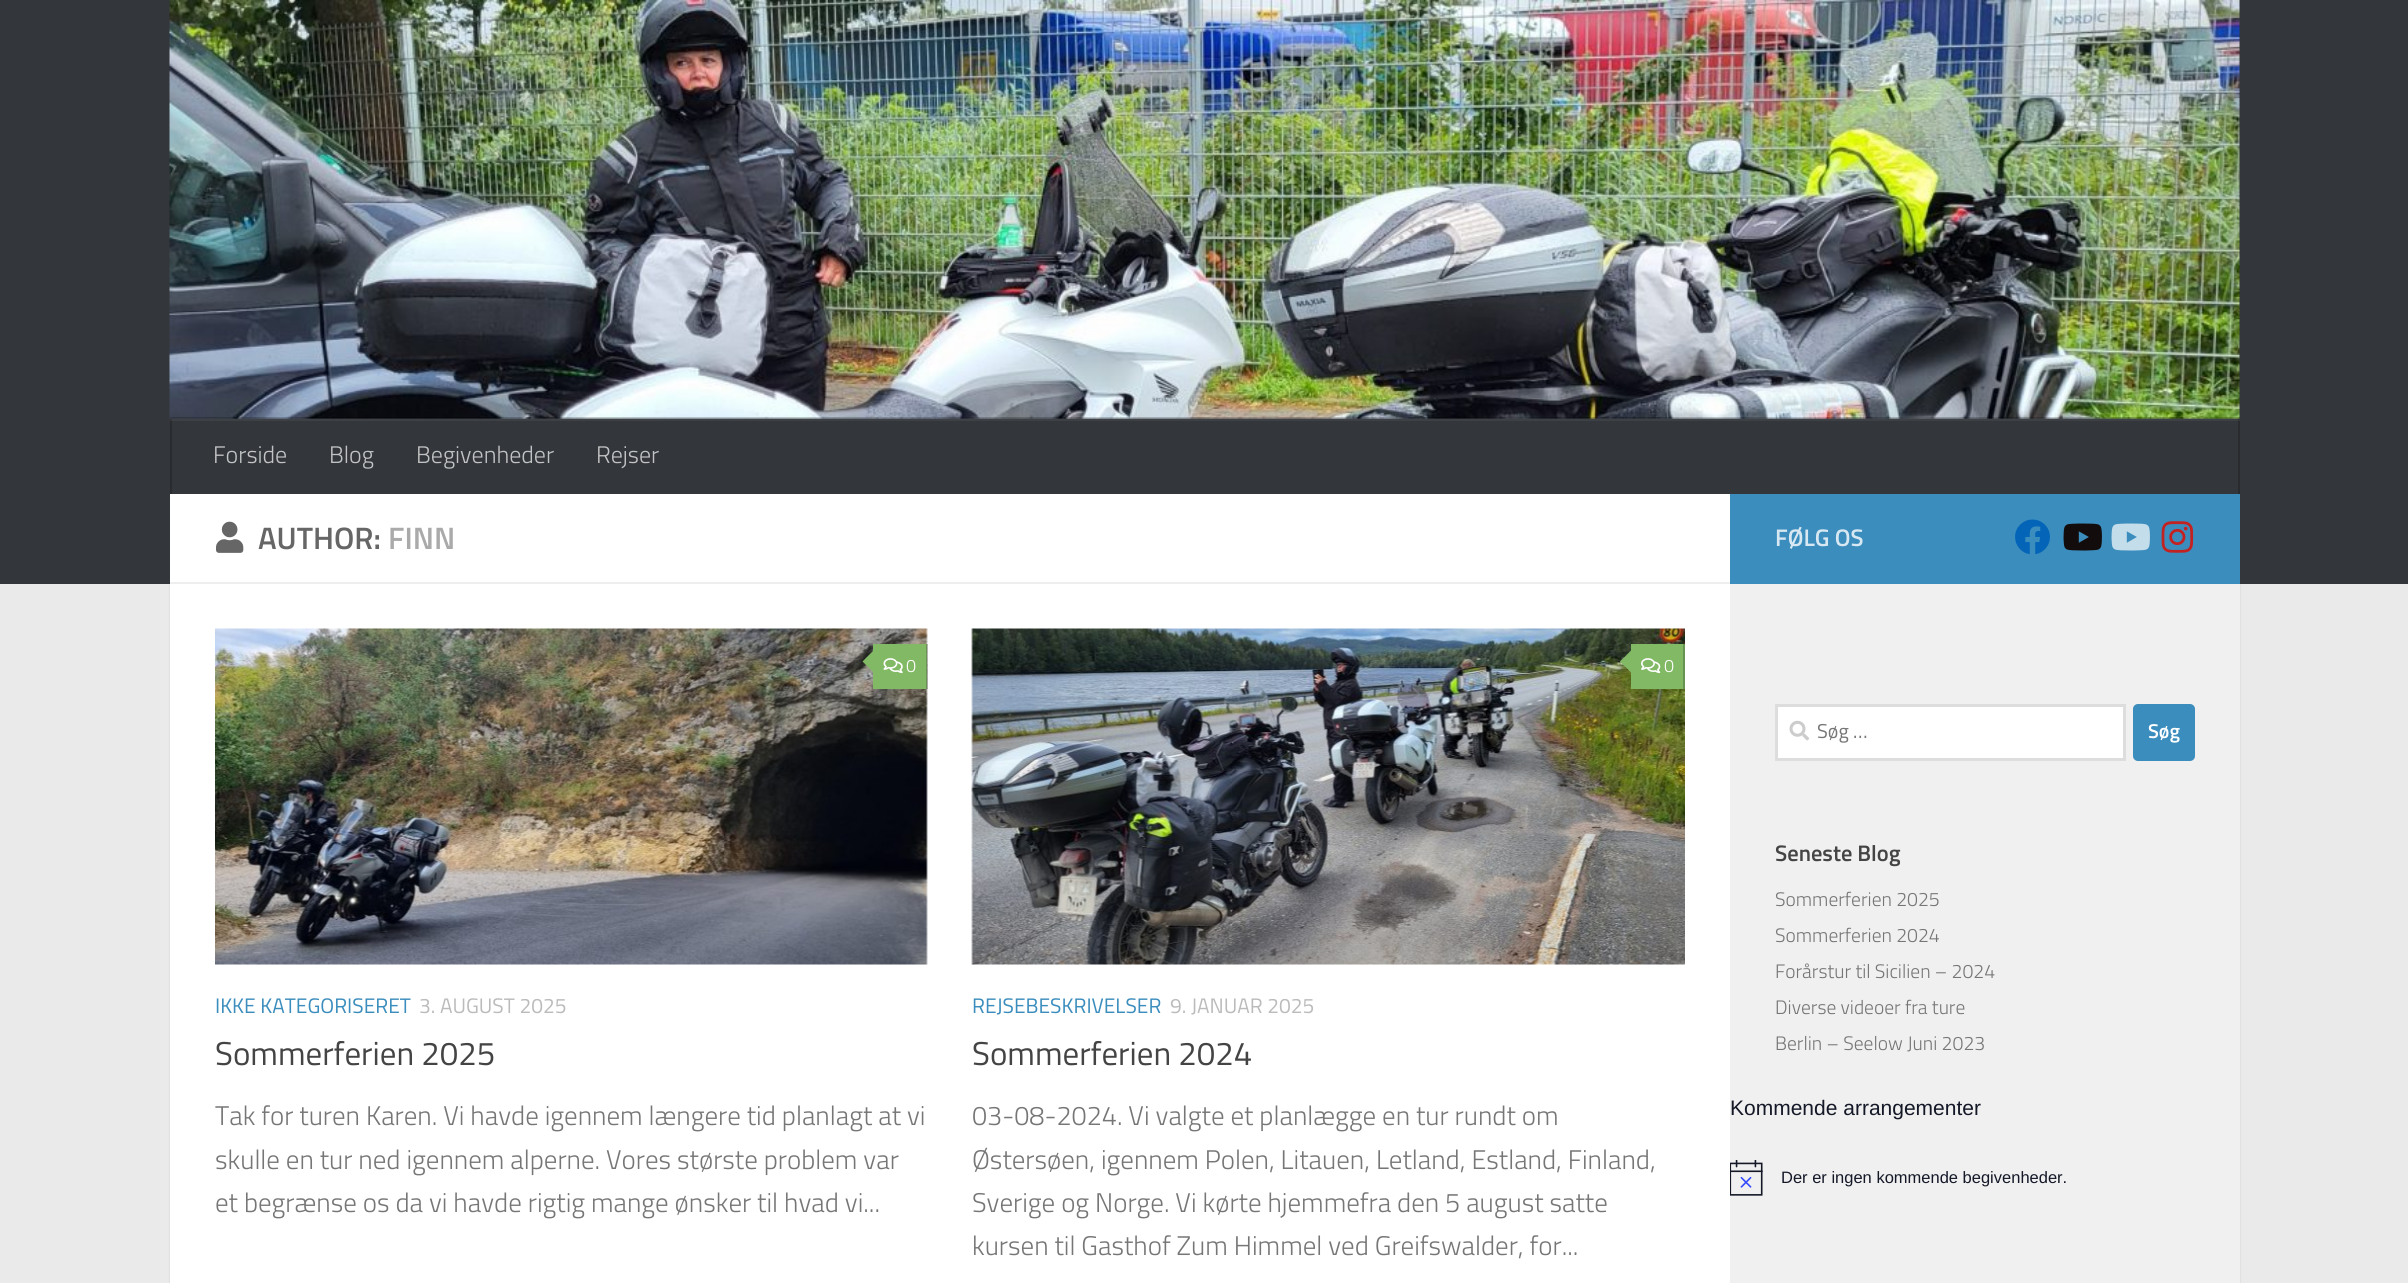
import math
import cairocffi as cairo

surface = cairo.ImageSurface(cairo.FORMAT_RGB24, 2408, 1283)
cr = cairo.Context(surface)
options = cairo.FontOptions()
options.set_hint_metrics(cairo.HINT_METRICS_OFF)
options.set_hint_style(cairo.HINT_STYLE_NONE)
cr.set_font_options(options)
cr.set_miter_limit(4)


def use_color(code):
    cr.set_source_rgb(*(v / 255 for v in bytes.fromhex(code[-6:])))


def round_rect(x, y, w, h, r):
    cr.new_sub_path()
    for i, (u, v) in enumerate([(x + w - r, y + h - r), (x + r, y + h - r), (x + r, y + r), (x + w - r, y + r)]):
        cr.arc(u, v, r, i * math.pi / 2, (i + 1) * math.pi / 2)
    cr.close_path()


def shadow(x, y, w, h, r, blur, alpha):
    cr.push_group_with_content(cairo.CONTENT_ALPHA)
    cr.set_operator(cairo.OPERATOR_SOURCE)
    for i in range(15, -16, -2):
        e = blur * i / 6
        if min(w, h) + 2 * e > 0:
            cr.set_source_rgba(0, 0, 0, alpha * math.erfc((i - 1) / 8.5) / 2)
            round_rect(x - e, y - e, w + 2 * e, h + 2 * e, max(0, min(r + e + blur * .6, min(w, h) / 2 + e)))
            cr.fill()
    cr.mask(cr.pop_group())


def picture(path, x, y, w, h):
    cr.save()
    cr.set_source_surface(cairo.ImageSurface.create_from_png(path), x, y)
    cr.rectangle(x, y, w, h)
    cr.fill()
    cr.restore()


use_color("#eaeaea")
cr.paint()
use_color("#000000")
shadow(170, 495, 2070, 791, 0, 1, 0.1)
use_color("#33363b")
cr.rectangle(0, 0, 2408, 584)
cr.fill()
use_color("#3d4045")
cr.rectangle(170, 419, 2070, 2)
cr.fill()
picture("img1.png", 169, 0, 2071, 419)
cr.set_source_rgba(0, 0, 0, 0.2)
cr.new_path()
cr.move_to(170, 417)
cr.line_to(170, 418)
cr.line_to(2240, 418)
cr.line_to(2240, 492)
cr.line_to(2240, 417)
cr.close_path()
cr.fill()
use_color("#292b2f")
cr.rectangle(2238, 419, 2, 75)
cr.fill()
use_color("#343639")
cr.rectangle(2238, 419, 2, 2)
cr.fill()
use_color("#292b2f")
cr.rectangle(170, 419, 2, 75)
cr.fill()
use_color("#343639")
cr.rectangle(170, 419, 2, 2)
cr.fill()
cr.select_font_face("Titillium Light")
cr.set_font_size(24)
use_color("#c2c3c4")
cr.move_to(213, 463)
cr.show_text("Forside")
cr.move_to(329, 463)
cr.show_text("Blog")
cr.move_to(416, 463)
cr.show_text("Begivenheder")
cr.move_to(596, 463)
cr.show_text("Rejser")
use_color("#ffffff")
cr.rectangle(170, 494, 1560, 789)
cr.fill()
use_color("#eeeeee")
cr.rectangle(170, 582, 1560, 2)
cr.fill()
picture("img2.png", 216, 521, 28, 32)
cr.select_font_face("Titillium SemiBold")
cr.set_font_size(31)
use_color("#666666")
cr.move_to(258, 549)
cr.show_text("AUTHOR:")
use_color("#aaaaaa")
cr.move_to(388, 549)
cr.show_text("FINN")
picture("img3.png", 215, 628, 713, 337)
use_color("#82b965")
cr.rectangle(873, 644, 54, 45)
cr.fill()
cr.set_source_rgba(0, 0, 0, 0.2)
cr.rectangle(926, 644, 2, 45)
cr.fill()
use_color("#82b965")
cr.new_path()
cr.move_to(876, 648)
cr.line_to(876, 675)
cr.line_to(862.5, 661.5)
cr.close_path()
cr.fill()
picture("img4.png", 883, 658, 20, 16)
cr.select_font_face("Titillium Light")
cr.set_font_size(18)
use_color("#ffffff")
cr.move_to(906, 672)
cr.show_text("0")
cr.select_font_face("Titillium")
cr.set_font_size(21)
use_color("#3b8dbd")
cr.move_to(215, 1013)
cr.show_text("IKKE KATEGORISERET")
use_color("#bbbbbb")
cr.move_to(419, 1013)
cr.show_text("3. AUGUST 2025")
cr.set_font_size(33)
use_color("#444444")
cr.move_to(215, 1065)
cr.show_text("Sommerferien 2025")
cr.select_font_face("Titillium Light")
cr.set_font_size(27)
use_color("#767676")
cr.move_to(215, 1125)
cr.show_text("Tak for turen Karen. Vi havde igennem længere tid planlagt at vi")
cr.move_to(215, 1169)
cr.show_text("skulle en tur ned igennem alperne. Vores største problem var")
cr.move_to(215, 1212)
cr.show_text("et begrænse os da vi havde rigtig mange ønsker til hvad vi...")
picture("img5.png", 971, 628, 714, 337)
use_color("#82b965")
cr.rectangle(1631, 644, 52, 45)
cr.fill()
use_color("#689451")
cr.rectangle(1683, 644, 2, 45)
cr.fill()
use_color("#82b965")
cr.new_path()
cr.move_to(1633.5, 648)
cr.line_to(1633.5, 675)
cr.line_to(1620, 661.5)
cr.close_path()
cr.fill()
picture("img6.png", 1641, 658, 20, 16)
cr.set_font_size(18)
use_color("#ffffff")
cr.move_to(1664, 672)
cr.show_text("0")
cr.select_font_face("Titillium")
cr.set_font_size(21)
use_color("#3b8dbd")
cr.move_to(972, 1013)
cr.show_text("REJSEBESKRIVELSER")
use_color("#bbbbbb")
cr.move_to(1170, 1013)
cr.show_text("9. JANUAR 2025")
cr.set_font_size(33)
use_color("#444444")
cr.move_to(972, 1065)
cr.show_text("Sommerferien 2024")
cr.select_font_face("Titillium Light")
cr.set_font_size(27)
use_color("#767676")
cr.move_to(972, 1125)
cr.show_text("03-08-2024. Vi valgte et planlægge en tur rundt om")
cr.move_to(972, 1169)
cr.show_text("Østersøen, igennem Polen, Litauen, Letland, Estland, Finland,")
cr.move_to(972, 1212)
cr.show_text("Sverige og Norge. Vi kørte hjemmefra den 5 august satte")
cr.move_to(972, 1255)
cr.show_text("kursen til Gasthof Zum Himmel ved Greifswalder, for...")
use_color("#3b8dbd")
cr.rectangle(1730, 494, 510, 90)
cr.fill()
cr.select_font_face("Titillium SemiBold")
cr.set_font_size(24)
use_color("#d8e8f2")
cr.move_to(1775, 546)
cr.show_text("FØLG OS")
picture("img7.png", 2015, 519, 35, 36)
picture("img8.png", 2063, 523, 39, 28)
picture("img9.png", 2111, 523, 39, 28)
picture("img10.png", 2161, 521, 33, 32)
use_color("#f0f0f0")
cr.rectangle(1730, 584, 510, 699)
cr.fill()
use_color("#ffffff")
cr.rectangle(1776.5, 705.5, 348, 54)
cr.fill_preserve()
use_color("#dddddd")
cr.set_line_width(3)
cr.stroke()
picture("img11.png", 1789, 720, 21, 21)
cr.select_font_face("Titillium")
cr.set_font_size(20)
use_color("#767676")
cr.move_to(1817, 738)
cr.show_text("Søg …")
use_color("#3b8dbd")
round_rect(2133, 704, 62, 57, 5)
cr.fill()
cr.select_font_face("Titillium SemiBold")
use_color("#ffffff")
cr.move_to(2148, 738)
cr.show_text("Søg")
cr.set_font_size(22.5)
use_color("#444444")
cr.move_to(1775, 861)
cr.show_text("Seneste Blog")
cr.select_font_face("Titillium Light")
cr.set_font_size(19.5)
use_color("#767676")
cr.move_to(1775, 906)
cr.show_text("Sommerferien 2025")
cr.move_to(1775, 942)
cr.show_text("Sommerferien 2024")
cr.move_to(1775, 978)
cr.show_text("Forårstur til Sicilien – 2024")
cr.move_to(1775, 1014)
cr.show_text("Diverse videoer fra ture")
cr.move_to(1775, 1050)
cr.show_text("Berlin – Seelow Juni 2023")
cr.select_font_face("Liberation Sans")
cr.set_font_size(21)
use_color("#141827")
cr.move_to(1730, 1115)
cr.show_text("Kommende arrangementer")
picture("img12.png", 1730, 1160, 33, 36)
cr.set_font_size(16.5)
cr.move_to(1781, 1183)
cr.show_text("Der er ingen kommende begivenheder.")
surface.write_to_png("result.png")
